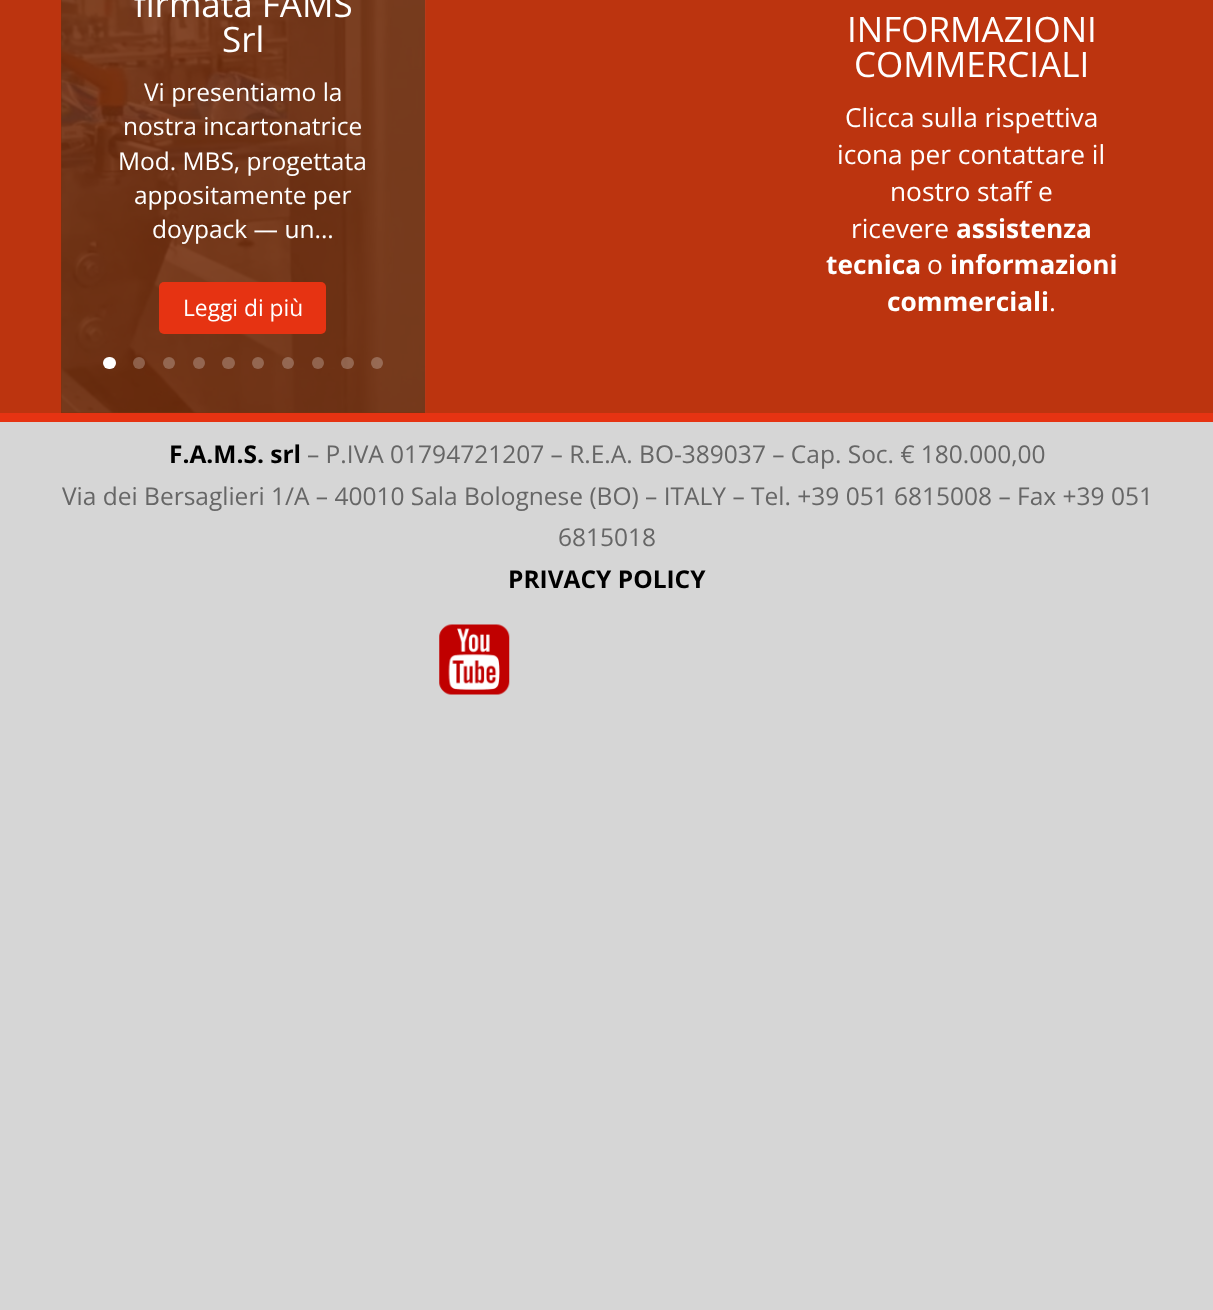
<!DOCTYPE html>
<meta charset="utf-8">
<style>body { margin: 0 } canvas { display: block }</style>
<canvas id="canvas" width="1213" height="1310"></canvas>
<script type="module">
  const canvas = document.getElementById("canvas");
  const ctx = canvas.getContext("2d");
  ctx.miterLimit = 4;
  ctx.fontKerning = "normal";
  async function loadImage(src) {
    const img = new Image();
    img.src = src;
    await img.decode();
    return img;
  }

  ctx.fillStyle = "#d6d6d6";
  ctx.fillRect(0, 0, 1213, 1310);
  ctx.fillStyle = "#bc340f";
  ctx.fillRect(0, 0, 1213, 413);
  ctx.fillStyle = "#e63312";
  ctx.fillRect(0, 413, 1213, 9);
  ctx.fillStyle = "#822e0b";
  ctx.fillRect(61, 0, 364, 413);
  ctx.drawImage(await loadImage("img1.png"), 61, 0, 365, 413);
  ctx.font = "35px Open Sans";
  ctx.fillStyle = "#ffffff";
  ctx.fillText("firmata FAMS", 134, 17);
  ctx.fillText("Srl", 222, 52);
  ctx.font = "24.5px Open Sans";
  ctx.fillText("Vi presentiamo la", 144, 101);
  ctx.fillText("nostra incartonatrice", 123, 135);
  ctx.fillText("Mod. MBS, progettata", 118, 170);
  ctx.fillText("appositamente per", 134, 204);
  ctx.fillText("doypack — un...", 152, 238);
  ctx.fillStyle = "#e63312";
  ctx.beginPath();
  ctx.roundRect(159, 282, 167, 52, 5);
  ctx.fill();
  ctx.font = "22.75px Open Sans";
  ctx.fillStyle = "#ffffff";
  ctx.fillText("Leggi di più", 183, 316);
  ctx.beginPath();
  ctx.roundRect(103, 357, 13, 12, 6);
  ctx.fill();
  ctx.fillStyle = "rgba(255, 255, 255, 0.25)";
  ctx.beginPath();
  ctx.arc(139, 363, 6, 0, Math.PI * 2);
  ctx.fill();
  ctx.fillStyle = "#946751";
  ctx.beginPath();
  ctx.arc(169, 363, 6, 0, Math.PI * 2);
  ctx.fill();
  ctx.fillStyle = "#936651";
  ctx.beginPath();
  ctx.arc(199, 363, 6, 0, Math.PI * 2);
  ctx.fill();
  ctx.fillStyle = "#936650";
  ctx.beginPath();
  ctx.roundRect(222, 357, 13, 12, 6);
  ctx.fill();
  ctx.fillStyle = "#946751";
  ctx.beginPath();
  ctx.arc(258, 363, 6, 0, Math.PI * 2);
  ctx.fill();
  ctx.fillStyle = "rgba(255, 255, 255, 0.25)";
  ctx.beginPath();
  ctx.arc(288, 363, 6, 0, Math.PI * 2);
  ctx.fill();
  ctx.fillStyle = "#91644e";
  ctx.beginPath();
  ctx.arc(318, 363, 6, 0, Math.PI * 2);
  ctx.fill();
  ctx.fillStyle = "rgba(255, 255, 255, 0.25)";
  ctx.beginPath();
  ctx.roundRect(341, 357, 13, 12, 6);
  ctx.fill();
  ctx.beginPath();
  ctx.arc(377, 363, 6, 0, Math.PI * 2);
  ctx.fill();
  ctx.font = "35px Open Sans";
  ctx.fillStyle = "#ffffff";
  ctx.fillText("INFORMAZIONI", 847, 42);
  ctx.fillText("COMMERCIALI", 854, 77);
  ctx.font = "26.25px Open Sans";
  ctx.fillText("Clicca sulla rispettiva", 845, 127);
  ctx.fillText("icona per contattare il", 837, 164);
  ctx.fillText("nostro staff e", 890, 201);
  ctx.fillText("ricevere", 851, 238);
  ctx.font = "bold 26.25px Open Sans";
  ctx.fillText("assistenza", 956, 238);
  ctx.fillText("tecnica", 826, 274);
  ctx.font = "26.25px Open Sans";
  ctx.fillText("o", 927, 274);
  ctx.font = "bold 26.25px Open Sans";
  ctx.fillText("informazioni", 950, 274);
  ctx.fillText("commerciali", 887, 311);
  ctx.font = "26.25px Open Sans";
  ctx.fillText(".", 1049, 311);
  ctx.font = "bold 24.5px Open Sans";
  ctx.fillStyle = "#000000";
  ctx.fillText("F.A.M.S. srl", 169, 463);
  ctx.font = "24.5px Open Sans";
  ctx.fillStyle = "#666666";
  ctx.fillText("– P.IVA 01794721207 – R.E.A. BO-389037 – Cap. Soc. € 180.000,00", 307, 463);
  ctx.fillText("Via dei Bersaglieri 1/A – 40010 Sala Bolognese (BO) – ITALY – Tel. +39 051 6815008 – Fax +39 051", 62, 505);
  ctx.fillText("6815018", 558, 546);
  ctx.font = "bold 24.5px Open Sans";
  ctx.fillStyle = "#000000";
  ctx.fillText("PRIVACY POLICY", 508, 588);
  ctx.drawImage(await loadImage("img2.png"), 439, 624, 71, 71);
</script>
